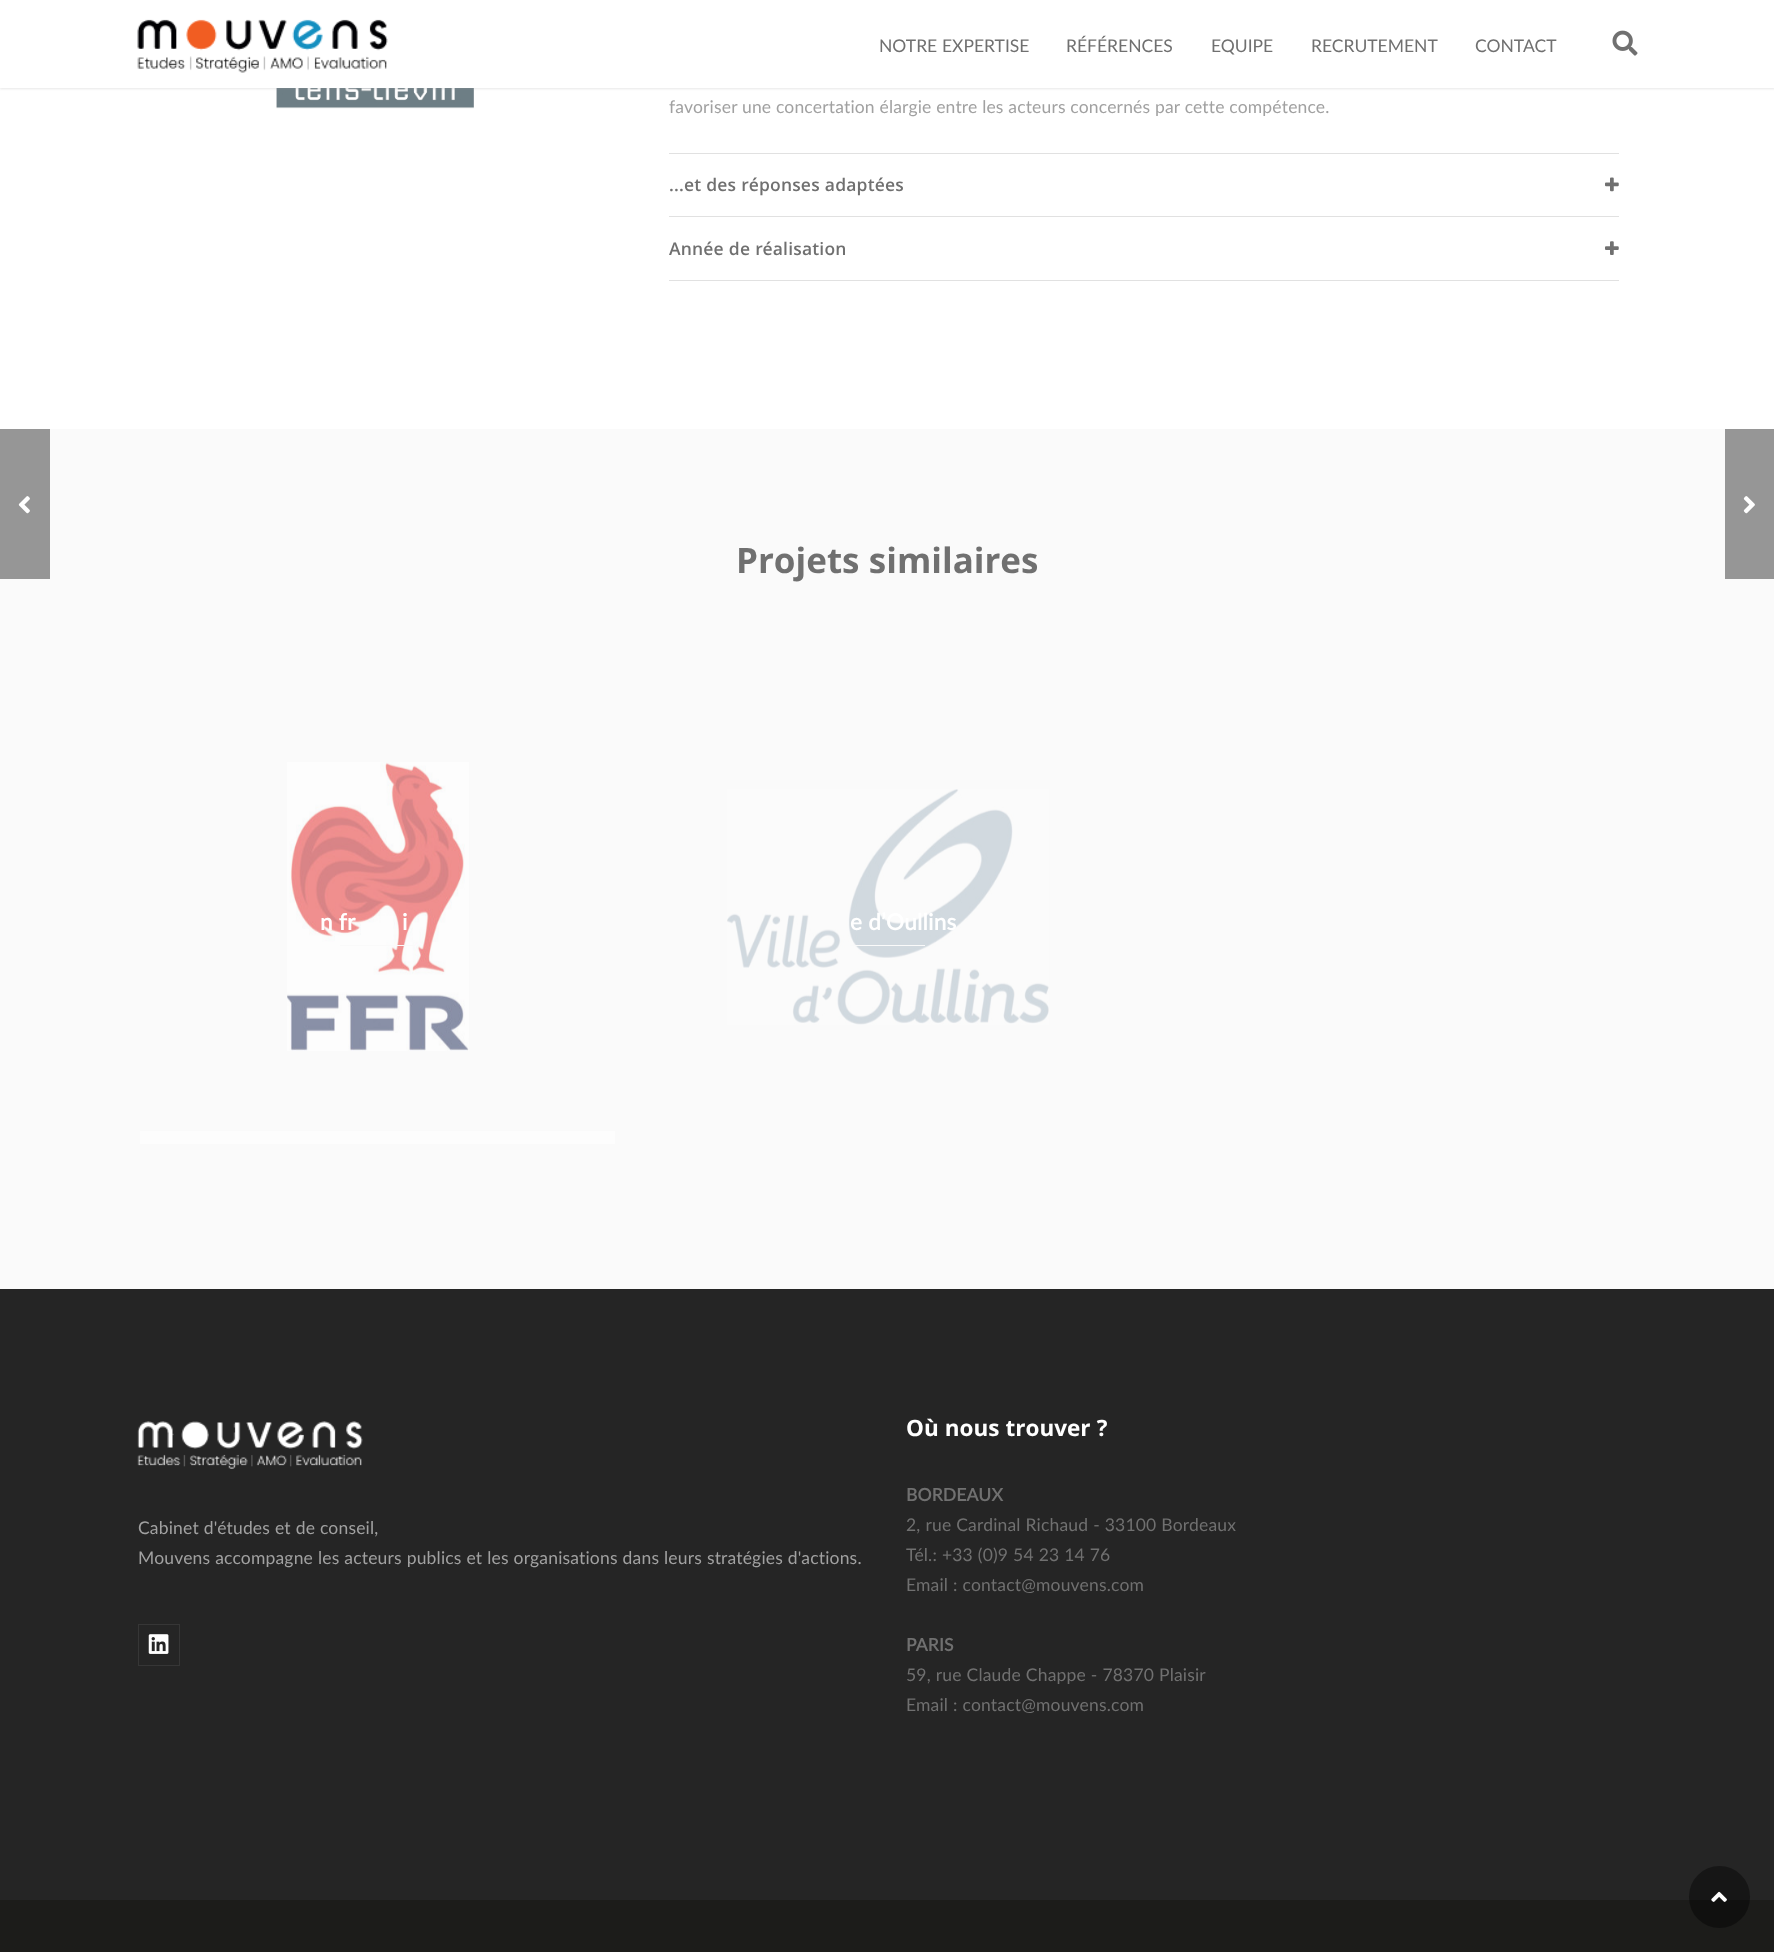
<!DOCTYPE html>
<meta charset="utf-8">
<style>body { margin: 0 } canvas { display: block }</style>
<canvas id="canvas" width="1774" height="1952"></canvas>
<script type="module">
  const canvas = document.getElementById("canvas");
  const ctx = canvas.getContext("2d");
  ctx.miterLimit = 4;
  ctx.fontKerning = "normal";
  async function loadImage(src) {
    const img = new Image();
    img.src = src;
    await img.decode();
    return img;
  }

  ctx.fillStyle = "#ffffff";
  ctx.fillRect(0, 0, 1774, 1952);
  ctx.drawImage(await loadImage("img3.png"), 205, 88, 340, 21);
  ctx.fillStyle = "rgba(161, 161, 161, 0.25)";
  ctx.filter = "blur(1px)";
  ctx.beginPath();
  ctx.rect(0, 1, 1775, 88);
  ctx.fill();
  ctx.filter = "none";
  ctx.fillStyle = "#ffffff";
  ctx.fillRect(0, 0, 1774, 88);
  ctx.drawImage(await loadImage("img1.png"), 137, 19, 251, 54);
  ctx.wordSpacing = "0.25px";
  ctx.font = "17.5px Lato";
  ctx.fillStyle = "#707070";
  ctx.fillText("NOTRE EXPERTISE", 879, 52);
  ctx.wordSpacing = "0px";
  ctx.fillText("RÉFÉRENCES", 1066, 52);
  ctx.fillText("EQUIPE", 1211, 52);
  ctx.fillText("RECRUTEMENT", 1311, 52);
  ctx.fillText("CONTACT", 1475, 52);
  ctx.drawImage(await loadImage("img2.png"), 1612, 30, 26, 26);
  ctx.fillStyle = "#e1e1e1";
  ctx.fillRect(669, 153, 950, 1);
  ctx.letterSpacing = "0.18px";
  ctx.fillStyle = "#a1a1a1";
  ctx.fillText("favoriser une concertation élargie entre les acteurs concernés par cette compétence.", 669, 113);
  ctx.fillStyle = "#e1e1e1";
  ctx.fillRect(669, 216, 950, 1);
  ctx.wordSpacing = "0.25px";
  ctx.font = "600 17.5px Open Sans";
  ctx.fillStyle = "#707070";
  ctx.fillText("...et des réponses adaptées", 669, 191);
  ctx.drawImage(await loadImage("img4.png"), 1605, 177, 14, 15);
  ctx.fillStyle = "#e1e1e1";
  ctx.fillRect(669, 280, 950, 1);
  ctx.fillStyle = "#707070";
  ctx.fillText("Année de réalisation", 669, 255);
  ctx.drawImage(await loadImage("img5.png"), 1605, 241, 14, 14);
  ctx.fillStyle = "#fafafa";
  ctx.fillRect(0, 429, 1774, 860);
  ctx.fillStyle = "#969696";
  ctx.fillRect(0, 429, 50, 150);
  ctx.drawImage(await loadImage("img6.png"), 18, 496, 12, 18);
  ctx.fillRect(1725, 429, 49, 150);
  ctx.drawImage(await loadImage("img7.png"), 1743, 496, 12, 18);
  ctx.letterSpacing = "0px";
  ctx.font = "bold 35px Open Sans";
  ctx.fillStyle = "#707070";
  ctx.fillText("Projets similaires", 736, 573);
  ctx.drawImage(await loadImage("img8.png"), 287, 762, 182, 289);
  ctx.letterSpacing = "0.25px";
  ctx.wordSpacing = "0px";
  ctx.font = "bold 22.5px Lato";
  ctx.fillStyle = "#ffffff";
  ctx.fillText("n fr", 320, 930);
  ctx.fillText("i", 402, 930);
  ctx.fillStyle = "#fafafa";
  ctx.fillRect(340, 945, 75, 1);
  ctx.fillStyle = "#fdfdfd";
  ctx.fillRect(140, 1131, 475, 13);
  ctx.drawImage(await loadImage("img9.png"), 727, 789, 322, 236);
  ctx.fillStyle = "#ffffff";
  ctx.fillText("e d’Oullins", 850, 930);
  ctx.fillStyle = "#fafafa";
  ctx.fillRect(850, 945, 75, 1);
  ctx.fillStyle = "#252525";
  ctx.fillRect(0, 1289, 1774, 611);
  ctx.drawImage(await loadImage("img10.png"), 137, 1421, 226, 48);
  ctx.letterSpacing = "0.18px";
  ctx.wordSpacing = "0.25px";
  ctx.font = "17.5px Lato";
  ctx.fillStyle = "#a1a1a1";
  ctx.fillText("Cabinet d'études et de conseil,", 138, 1534);
  ctx.fillText("Mouvens accompagne les acteurs publics et les organisations dans leurs stratégies d'actions.", 138, 1564);
  ctx.strokeStyle = "#363636";
  ctx.strokeRect(138.5, 1624.5, 41, 41);
  ctx.drawImage(await loadImage("img11.png"), 148, 1634, 21, 20);
  ctx.letterSpacing = "0px";
  ctx.font = "bold 22.5px Open Sans";
  ctx.fillStyle = "#ffffff";
  ctx.fillText("Où nous trouver ?", 906, 1436);
  ctx.letterSpacing = "0.18px";
  ctx.wordSpacing = "0px";
  ctx.font = "bold 17.5px Lato";
  ctx.fillStyle = "#707070";
  ctx.fillText("BORDEAUX", 906, 1501);
  ctx.wordSpacing = "0.25px";
  ctx.font = "17.5px Lato";
  ctx.fillText("2, rue Cardinal Richaud - 33100 Bordeaux", 906, 1531);
  ctx.fillText("Tél.: +33 (0)9 54 23 14 76", 906, 1561);
  ctx.fillText("Email : contact@mouvens.com", 906, 1591);
  ctx.wordSpacing = "0px";
  ctx.font = "bold 17.5px Lato";
  ctx.fillText("PARIS", 906, 1651);
  ctx.wordSpacing = "0.25px";
  ctx.font = "17.5px Lato";
  ctx.fillText("59, rue Claude Chappe - 78370 Plaisir", 906, 1681);
  ctx.fillText("Email : contact@mouvens.com", 906, 1711);
  ctx.fillStyle = "#1c1c1a";
  ctx.fillRect(0, 1900, 1774, 52);
  ctx.fillStyle = "rgba(0, 0, 0, 0.4)";
  ctx.beginPath();
  ctx.roundRect(1689, 1866, 61, 62, 30.5);
  ctx.fill();
  ctx.drawImage(await loadImage("img12.png"), 1711, 1891, 16, 11);
</script>
